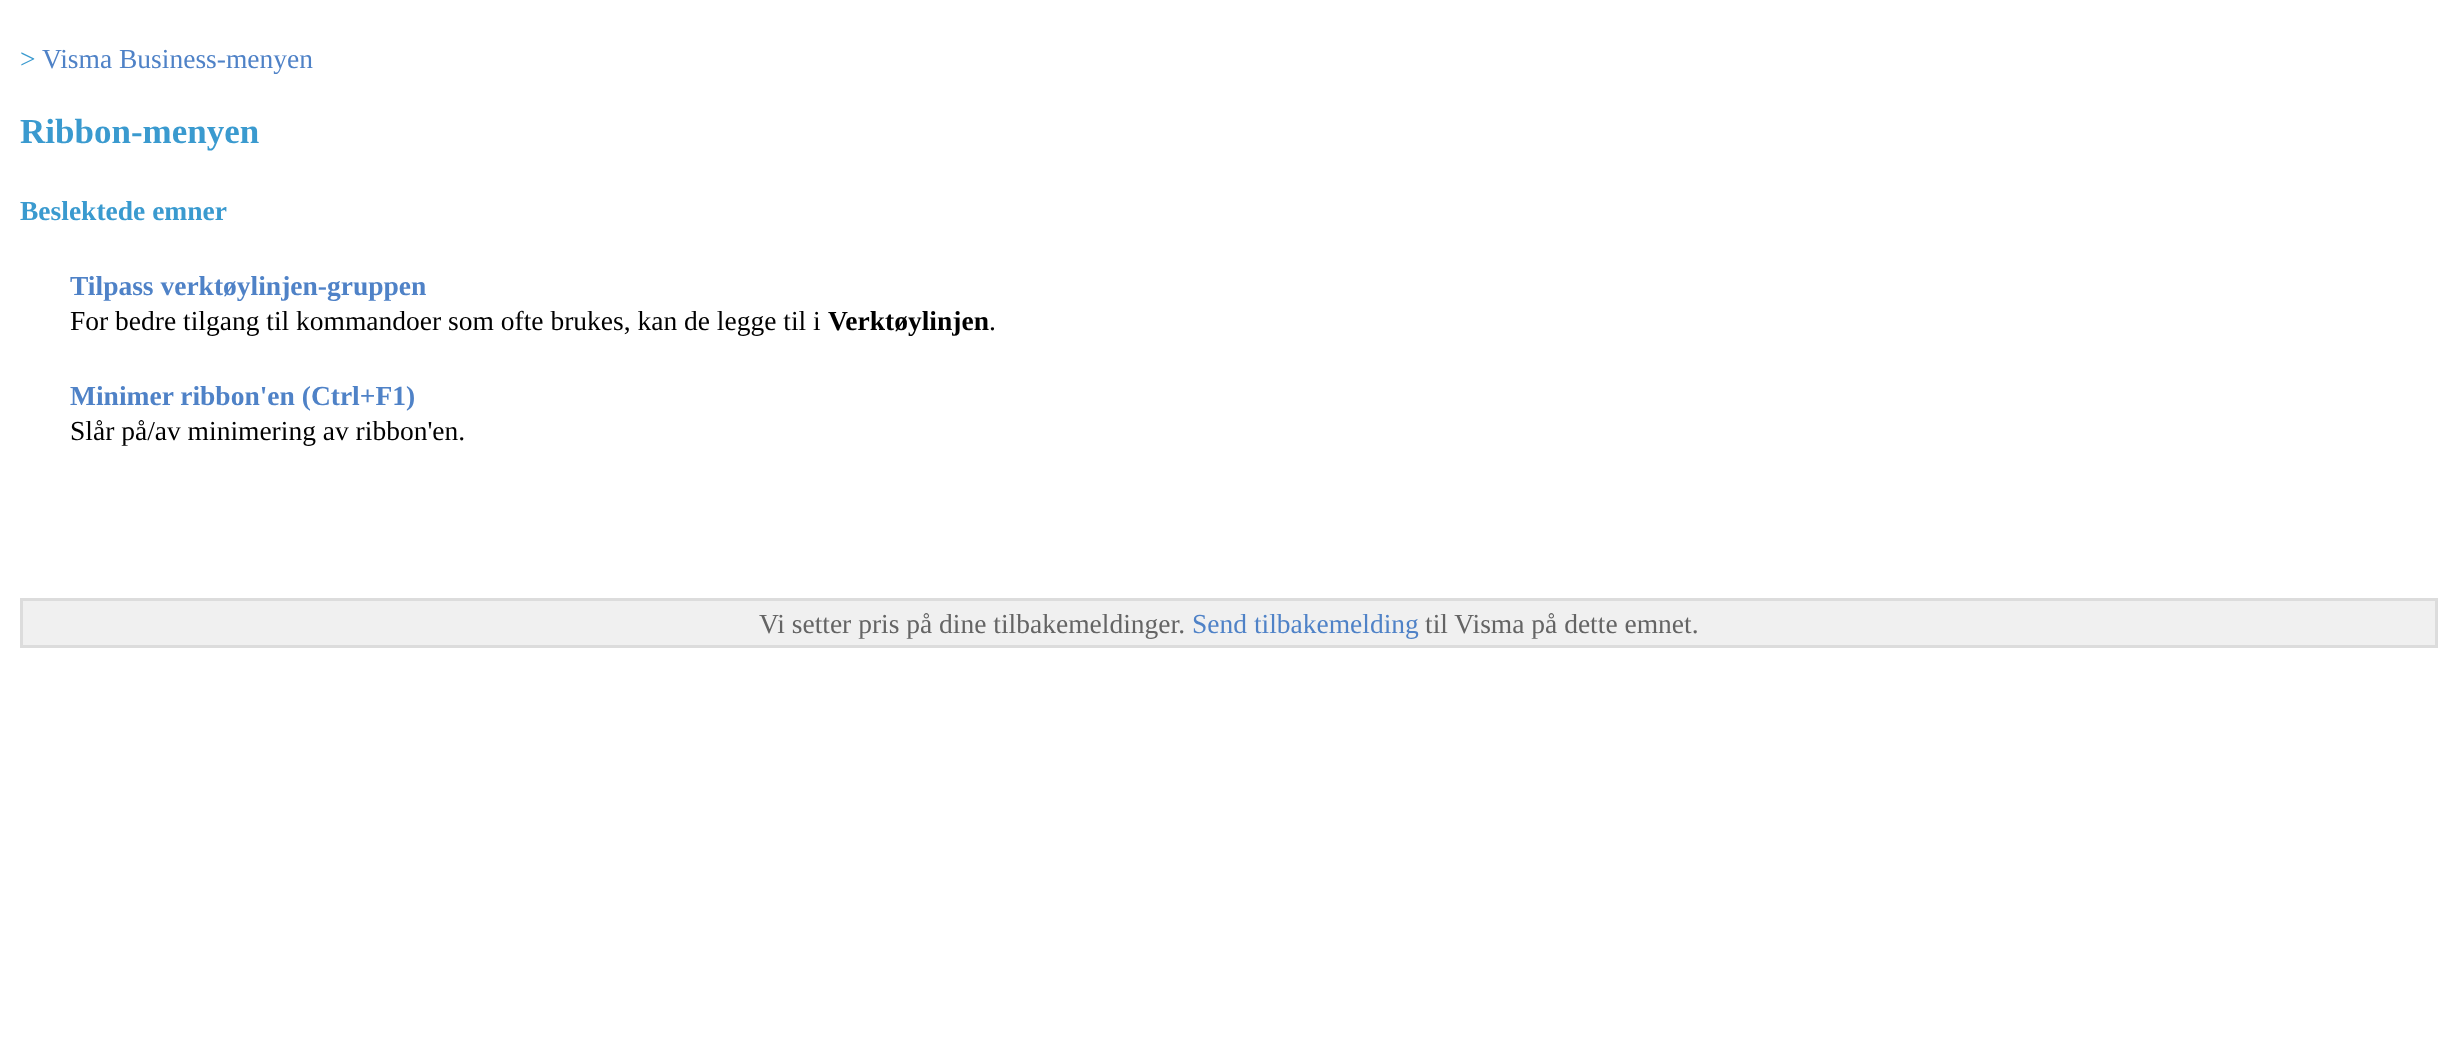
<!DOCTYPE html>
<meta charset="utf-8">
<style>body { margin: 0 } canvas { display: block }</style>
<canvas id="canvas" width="2456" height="1056"></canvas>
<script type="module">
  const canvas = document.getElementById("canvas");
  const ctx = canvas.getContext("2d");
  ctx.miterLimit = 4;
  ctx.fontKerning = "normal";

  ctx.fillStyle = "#ffffff";
  ctx.fillRect(0, 0, 2456, 1056);
  ctx.font = "27.5px Liberation Serif";
  ctx.fillStyle = "#3a9acf";
  ctx.fillText(">", 20, 68);
  ctx.fillStyle = "#4f82c7";
  ctx.fillText("Visma Business-menyen", 42, 68);
  ctx.font = "bold 35px Liberation Serif";
  ctx.fillStyle = "#3a9acf";
  ctx.fillText("Ribbon-menyen", 20, 143);
  ctx.font = "bold 27.5px Liberation Serif";
  ctx.fillText("Beslektede emner", 20, 220);
  ctx.fillStyle = "#4f82c7";
  ctx.fillText("Tilpass verktøylinjen-gruppen", 70, 295);
  ctx.font = "27.5px Liberation Serif";
  ctx.fillStyle = "#000000";
  ctx.fillText("For bedre tilgang til kommandoer som ofte brukes, kan de legge til i", 70, 330);
  ctx.font = "bold 27.5px Liberation Serif";
  ctx.fillText("Verktøylinjen", 828, 330);
  ctx.font = "27.5px Liberation Serif";
  ctx.fillText(".", 989, 330);
  ctx.font = "bold 27.5px Liberation Serif";
  ctx.fillStyle = "#4f82c7";
  ctx.fillText("Minimer ribbon'en (Ctrl+F1)", 70, 405);
  ctx.font = "27.5px Liberation Serif";
  ctx.fillStyle = "#000000";
  ctx.fillText("Slår på/av minimering av ribbon'en.", 70, 440);
  ctx.fillStyle = "#f0f0f0";
  ctx.beginPath();
  ctx.rect(21.5, 599.5, 2415, 47);
  ctx.fill();
  ctx.strokeStyle = "#dcdcdc";
  ctx.lineWidth = 3;
  ctx.stroke();
  ctx.fillStyle = "#646464";
  ctx.fillText("Vi setter pris på dine tilbakemeldinger.", 759, 633);
  ctx.fillStyle = "#4f82c7";
  ctx.fillText("Send tilbakemelding", 1192, 633);
  ctx.fillStyle = "#646464";
  ctx.fillText("til Visma på dette emnet.", 1425, 633);
</script>
